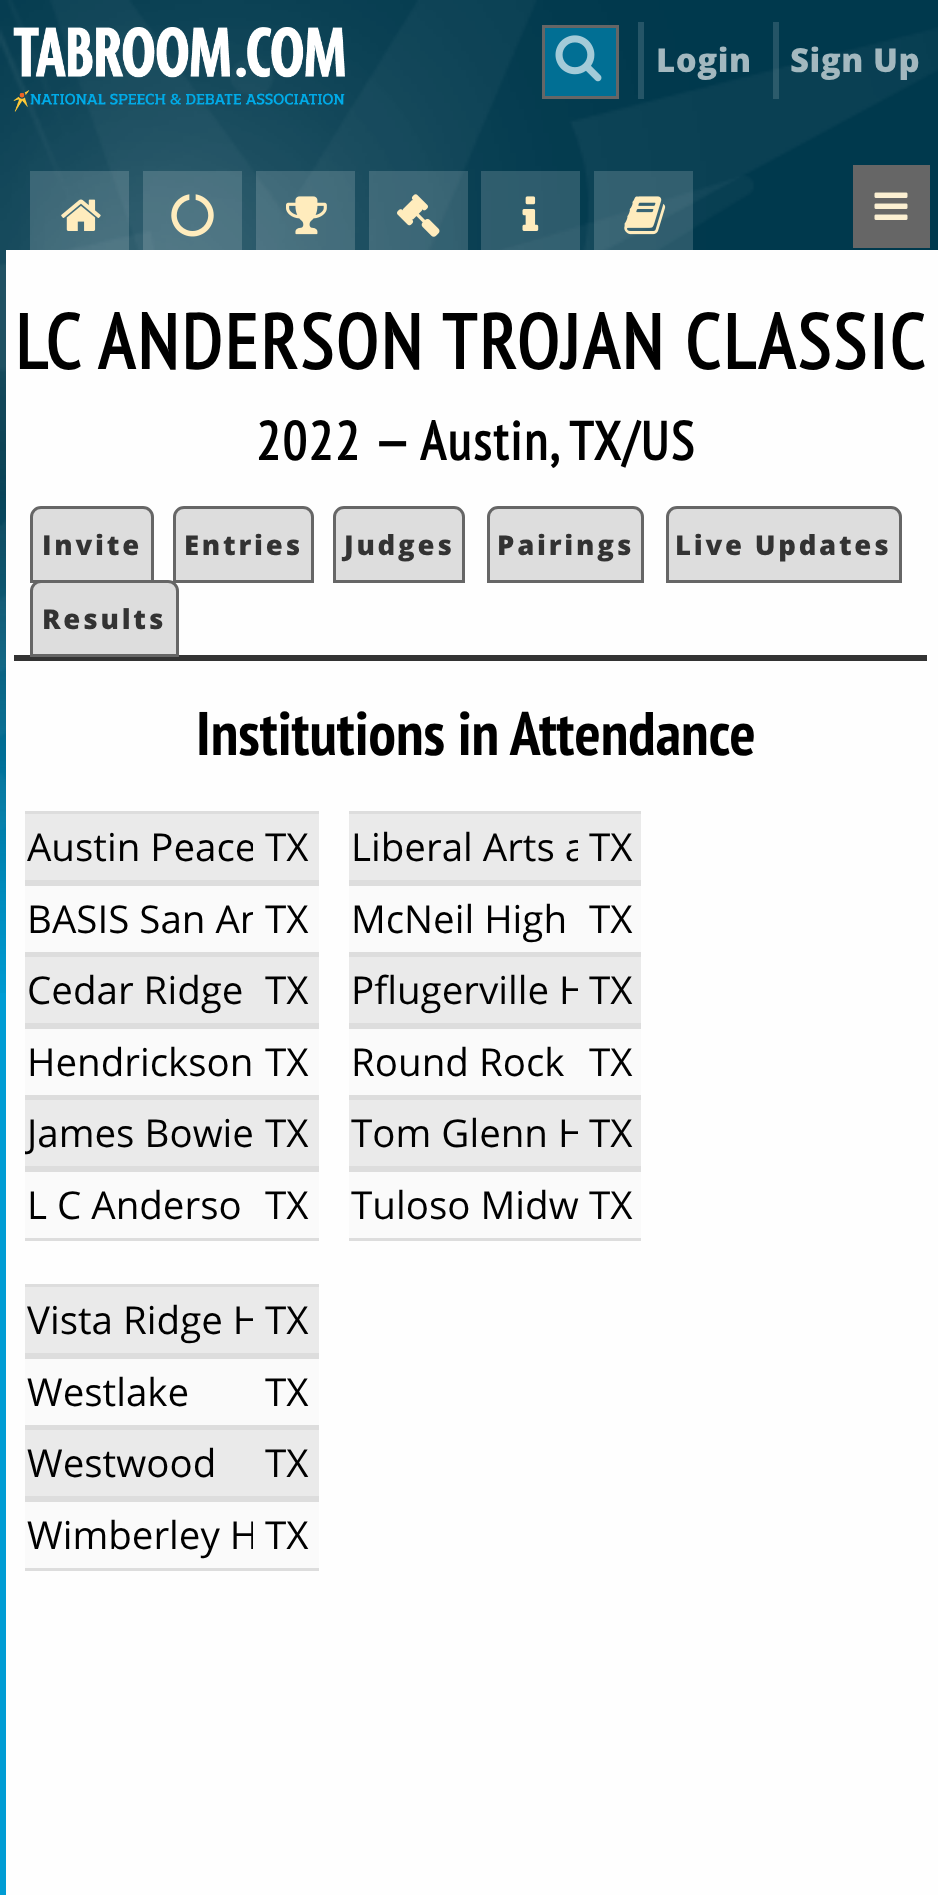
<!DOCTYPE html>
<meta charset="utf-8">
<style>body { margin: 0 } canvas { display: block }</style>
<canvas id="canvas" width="938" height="1895"></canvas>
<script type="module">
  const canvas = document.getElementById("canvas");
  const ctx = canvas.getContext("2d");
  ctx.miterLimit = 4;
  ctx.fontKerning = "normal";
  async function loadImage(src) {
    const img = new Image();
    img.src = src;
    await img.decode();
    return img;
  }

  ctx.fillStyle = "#009cd4";
  ctx.fillRect(0, 0, 938, 1895);
  ctx.drawImage(await loadImage("img1.png"), 0, 0, 938, 993);
  ctx.drawImage(await loadImage("img2.png"), 0, 0, 938, 830);
  ctx.drawImage(await loadImage("img3.png"), 13, 27, 332, 85);
  ctx.fillStyle = "#016f94";
  ctx.beginPath();
  ctx.rect(543.5, 26.5, 74, 71);
  ctx.fill();
  ctx.strokeStyle = "#666666";
  ctx.lineWidth = 3;
  ctx.stroke();
  ctx.drawImage(await loadImage("img4.png"), 555, 35, 47, 47);
  ctx.fillStyle = "#255567";
  ctx.fillRect(638, 22, 6, 77);
  ctx.letterSpacing = "0.5px";
  ctx.font = "800 33px Open Sans";
  ctx.fillStyle = "#a3b8bf";
  ctx.fillText("Login", 656, 72);
  ctx.fillStyle = "rgba(255, 255, 255, 0.14)";
  ctx.fillRect(773, 22, 6, 77);
  ctx.fillStyle = "#a3b8bf";
  ctx.fillText("Sign Up", 790, 72);
  ctx.fillStyle = "rgba(255, 255, 255, 0.16)";
  ctx.fillRect(30, 171, 99, 79);
  ctx.drawImage(await loadImage("img5.png"), 61, 199, 40, 32);
  ctx.fillRect(143, 171, 99, 79);
  ctx.drawImage(await loadImage("img6.png"), 171, 194, 43, 43);
  ctx.fillRect(256, 171, 99, 79);
  ctx.drawImage(await loadImage("img7.png"), 286, 196, 41, 39);
  ctx.fillRect(369, 171, 99, 79);
  ctx.drawImage(await loadImage("img8.png"), 397, 194, 43, 43);
  ctx.fillRect(481, 171, 99, 79);
  ctx.drawImage(await loadImage("img9.png"), 522, 196, 17, 35);
  ctx.fillRect(594, 171, 99, 79);
  ctx.drawImage(await loadImage("img10.png"), 624, 196, 42, 39);
  ctx.fillStyle = "#666666";
  ctx.fillRect(853, 165, 77, 83);
  ctx.drawImage(await loadImage("img11.png"), 874, 192, 34, 28);
  ctx.fillStyle = "#fefefe";
  ctx.fillRect(6, 250, 932, 1645);
  ctx.letterSpacing = "2.75px";
  ctx.font = "bold 77px PT Sans Narrow";
  ctx.fillStyle = "#000000";
  ctx.fillText("LC ANDERSON TROJAN CLASSIC", 15, 369);
  ctx.letterSpacing = "2px";
  ctx.font = "bold 54px PT Sans Narrow";
  ctx.fillText("2022", 256, 460);
  ctx.fillText("—", 374, 460);
  ctx.fillText("Austin,", 420, 460);
  ctx.fillText("TX/US", 569, 460);
  ctx.fillStyle = "#333333";
  ctx.fillRect(14, 655, 913, 6);
  ctx.fillStyle = "#dddddd";
  ctx.beginPath();
  ctx.roundRect(31.5, 507.5, 121, 74, [9.5, 9.5, 0, 0]);
  ctx.fill();
  ctx.stroke();
  ctx.letterSpacing = "2.75px";
  ctx.font = "800 27.5px Open Sans";
  ctx.fillStyle = "#333333";
  ctx.fillText("Invite", 42, 555);
  ctx.fillStyle = "#dddddd";
  ctx.beginPath();
  ctx.roundRect(174.5, 507.5, 138, 74, [9.5, 9.5, 0, 0]);
  ctx.fill();
  ctx.stroke();
  ctx.fillStyle = "#333333";
  ctx.fillText("Entries", 184, 555);
  ctx.fillStyle = "#dddddd";
  ctx.beginPath();
  ctx.roundRect(334.5, 507.5, 129, 74, [9.5, 9.5, 0, 0]);
  ctx.fill();
  ctx.stroke();
  ctx.fillStyle = "#333333";
  ctx.fillText("Judges", 344, 555);
  ctx.fillStyle = "#dddddd";
  ctx.beginPath();
  ctx.roundRect(488.5, 507.5, 154, 74, [9.5, 9.5, 0, 0]);
  ctx.fill();
  ctx.stroke();
  ctx.fillStyle = "#333333";
  ctx.fillText("Pairings", 497, 555);
  ctx.fillStyle = "#dddddd";
  ctx.beginPath();
  ctx.roundRect(667.5, 507.5, 233, 74, [9.5, 9.5, 0, 0]);
  ctx.fill();
  ctx.stroke();
  ctx.fillStyle = "#333333";
  ctx.fillText("Live Updates", 675, 555);
  ctx.fillStyle = "#dddddd";
  ctx.beginPath();
  ctx.roundRect(31.5, 581.5, 146, 74, [9.5, 9.5, 0, 0]);
  ctx.fill();
  ctx.stroke();
  ctx.fillStyle = "#333333";
  ctx.fillText("Results", 42, 629);
  ctx.letterSpacing = "0px";
  ctx.font = "bold 61.5px 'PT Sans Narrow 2'";
  ctx.fillStyle = "#000000";
  ctx.fillText("Institutions in Attendance", 196, 755);
  ctx.fillStyle = "#eaeaea";
  ctx.fillRect(25, 814, 294, 66);
  ctx.fillStyle = "#dddddd";
  ctx.fillRect(25, 811, 294, 3);
  ctx.fillRect(25, 880, 294, 6);
  ctx.save();
  ctx.beginPath();
  ctx.rect(25, 820, 228, 55);
  ctx.clip();
  ctx.font = "38.5px Open Sans";
  ctx.fillStyle = "#000000";
  ctx.fillText("Austin Peace", 27, 861);
  ctx.restore();
  ctx.font = "38.5px Open Sans";
  ctx.fillStyle = "#000000";
  ctx.fillText("TX", 265, 861);
  ctx.fillStyle = "#fafafa";
  ctx.fillRect(25, 886, 294, 66);
  ctx.fillStyle = "#dddddd";
  ctx.fillRect(25, 952, 294, 5);
  ctx.save();
  ctx.beginPath();
  ctx.rect(25, 891, 228, 55);
  ctx.clip();
  ctx.fillStyle = "#000000";
  ctx.fillText("BASIS San An", 27, 933);
  ctx.restore();
  ctx.fillStyle = "#000000";
  ctx.fillText("TX", 265, 933);
  ctx.fillStyle = "#eaeaea";
  ctx.fillRect(25, 957, 294, 66);
  ctx.fillStyle = "#dddddd";
  ctx.fillRect(25, 1023, 294, 6);
  ctx.fillStyle = "#000000";
  ctx.fillText("Cedar Ridge", 27, 1004);
  ctx.fillText("TX", 265, 1004);
  ctx.fillStyle = "#fafafa";
  ctx.fillRect(25, 1029, 294, 66);
  ctx.fillStyle = "#dddddd";
  ctx.fillRect(25, 1095, 294, 5);
  ctx.fillStyle = "#000000";
  ctx.fillText("Hendrickson", 27, 1076);
  ctx.fillText("TX", 265, 1076);
  ctx.fillStyle = "#eaeaea";
  ctx.fillRect(25, 1100, 294, 66);
  ctx.fillStyle = "#dddddd";
  ctx.fillRect(25, 1166, 294, 6);
  ctx.save();
  ctx.beginPath();
  ctx.rect(25, 1106, 228, 55);
  ctx.clip();
  ctx.fillStyle = "#000000";
  ctx.fillText("James Bowie", 27, 1147);
  ctx.restore();
  ctx.fillStyle = "#000000";
  ctx.fillText("TX", 265, 1147);
  ctx.fillStyle = "#fafafa";
  ctx.fillRect(25, 1172, 294, 66);
  ctx.fillStyle = "#dddddd";
  ctx.fillRect(25, 1238, 294, 3);
  ctx.fillStyle = "#000000";
  ctx.fillText("L C Anderso", 27, 1219);
  ctx.fillText("TX", 265, 1219);
  ctx.fillStyle = "#eaeaea";
  ctx.fillRect(349, 814, 292, 66);
  ctx.fillStyle = "#dddddd";
  ctx.fillRect(349, 811, 292, 3);
  ctx.fillRect(349, 880, 292, 6);
  ctx.save();
  ctx.beginPath();
  ctx.rect(349, 820, 229, 55);
  ctx.clip();
  ctx.fillStyle = "#000000";
  ctx.fillText("Liberal Arts a", 351, 861);
  ctx.restore();
  ctx.fillStyle = "#000000";
  ctx.fillText("TX", 589, 861);
  ctx.fillStyle = "#fafafa";
  ctx.fillRect(349, 886, 292, 66);
  ctx.fillStyle = "#dddddd";
  ctx.fillRect(349, 952, 292, 5);
  ctx.fillStyle = "#000000";
  ctx.fillText("McNeil High", 351, 933);
  ctx.fillText("TX", 589, 933);
  ctx.fillStyle = "#eaeaea";
  ctx.fillRect(349, 957, 292, 66);
  ctx.fillStyle = "#dddddd";
  ctx.fillRect(349, 1023, 292, 6);
  ctx.save();
  ctx.beginPath();
  ctx.rect(349, 963, 229, 55);
  ctx.clip();
  ctx.fillStyle = "#000000";
  ctx.fillText("Pflugerville H", 351, 1004);
  ctx.restore();
  ctx.fillStyle = "#000000";
  ctx.fillText("TX", 589, 1004);
  ctx.fillStyle = "#fafafa";
  ctx.fillRect(349, 1029, 292, 66);
  ctx.fillStyle = "#dddddd";
  ctx.fillRect(349, 1095, 292, 5);
  ctx.fillStyle = "#000000";
  ctx.fillText("Round Rock", 351, 1076);
  ctx.fillText("TX", 589, 1076);
  ctx.fillStyle = "#eaeaea";
  ctx.fillRect(349, 1100, 292, 66);
  ctx.fillStyle = "#dddddd";
  ctx.fillRect(349, 1166, 292, 6);
  ctx.save();
  ctx.beginPath();
  ctx.rect(349, 1106, 229, 55);
  ctx.clip();
  ctx.fillStyle = "#000000";
  ctx.fillText("Tom Glenn H", 351, 1147);
  ctx.restore();
  ctx.fillStyle = "#000000";
  ctx.fillText("TX", 589, 1147);
  ctx.fillStyle = "#fafafa";
  ctx.fillRect(349, 1172, 292, 66);
  ctx.fillStyle = "#dddddd";
  ctx.fillRect(349, 1238, 292, 3);
  ctx.fillStyle = "#000000";
  ctx.fillText("Tuloso Midw", 351, 1219);
  ctx.fillText("TX", 589, 1219);
  ctx.fillStyle = "#eaeaea";
  ctx.fillRect(25, 1287, 294, 66);
  ctx.fillStyle = "#dddddd";
  ctx.fillRect(25, 1284, 294, 3);
  ctx.fillRect(25, 1353, 294, 6);
  ctx.save();
  ctx.beginPath();
  ctx.rect(25, 1293, 228, 55);
  ctx.clip();
  ctx.fillStyle = "#000000";
  ctx.fillText("Vista Ridge H", 27, 1334);
  ctx.restore();
  ctx.fillStyle = "#000000";
  ctx.fillText("TX", 265, 1334);
  ctx.fillStyle = "#fafafa";
  ctx.fillRect(25, 1359, 294, 66);
  ctx.fillStyle = "#dddddd";
  ctx.fillRect(25, 1425, 294, 5);
  ctx.fillStyle = "#000000";
  ctx.fillText("Westlake", 27, 1406);
  ctx.fillText("TX", 265, 1406);
  ctx.fillStyle = "#eaeaea";
  ctx.fillRect(25, 1430, 294, 66);
  ctx.fillStyle = "#dddddd";
  ctx.fillRect(25, 1496, 294, 6);
  ctx.fillStyle = "#000000";
  ctx.fillText("Westwood", 27, 1477);
  ctx.fillText("TX", 265, 1477);
  ctx.fillStyle = "#fafafa";
  ctx.fillRect(25, 1502, 294, 66);
  ctx.fillStyle = "#dddddd";
  ctx.fillRect(25, 1568, 294, 3);
  ctx.save();
  ctx.beginPath();
  ctx.rect(25, 1507, 228, 55);
  ctx.clip();
  ctx.fillStyle = "#000000";
  ctx.fillText("Wimberley H", 27, 1549);
  ctx.restore();
  ctx.fillStyle = "#000000";
  ctx.fillText("TX", 265, 1549);
</script>
